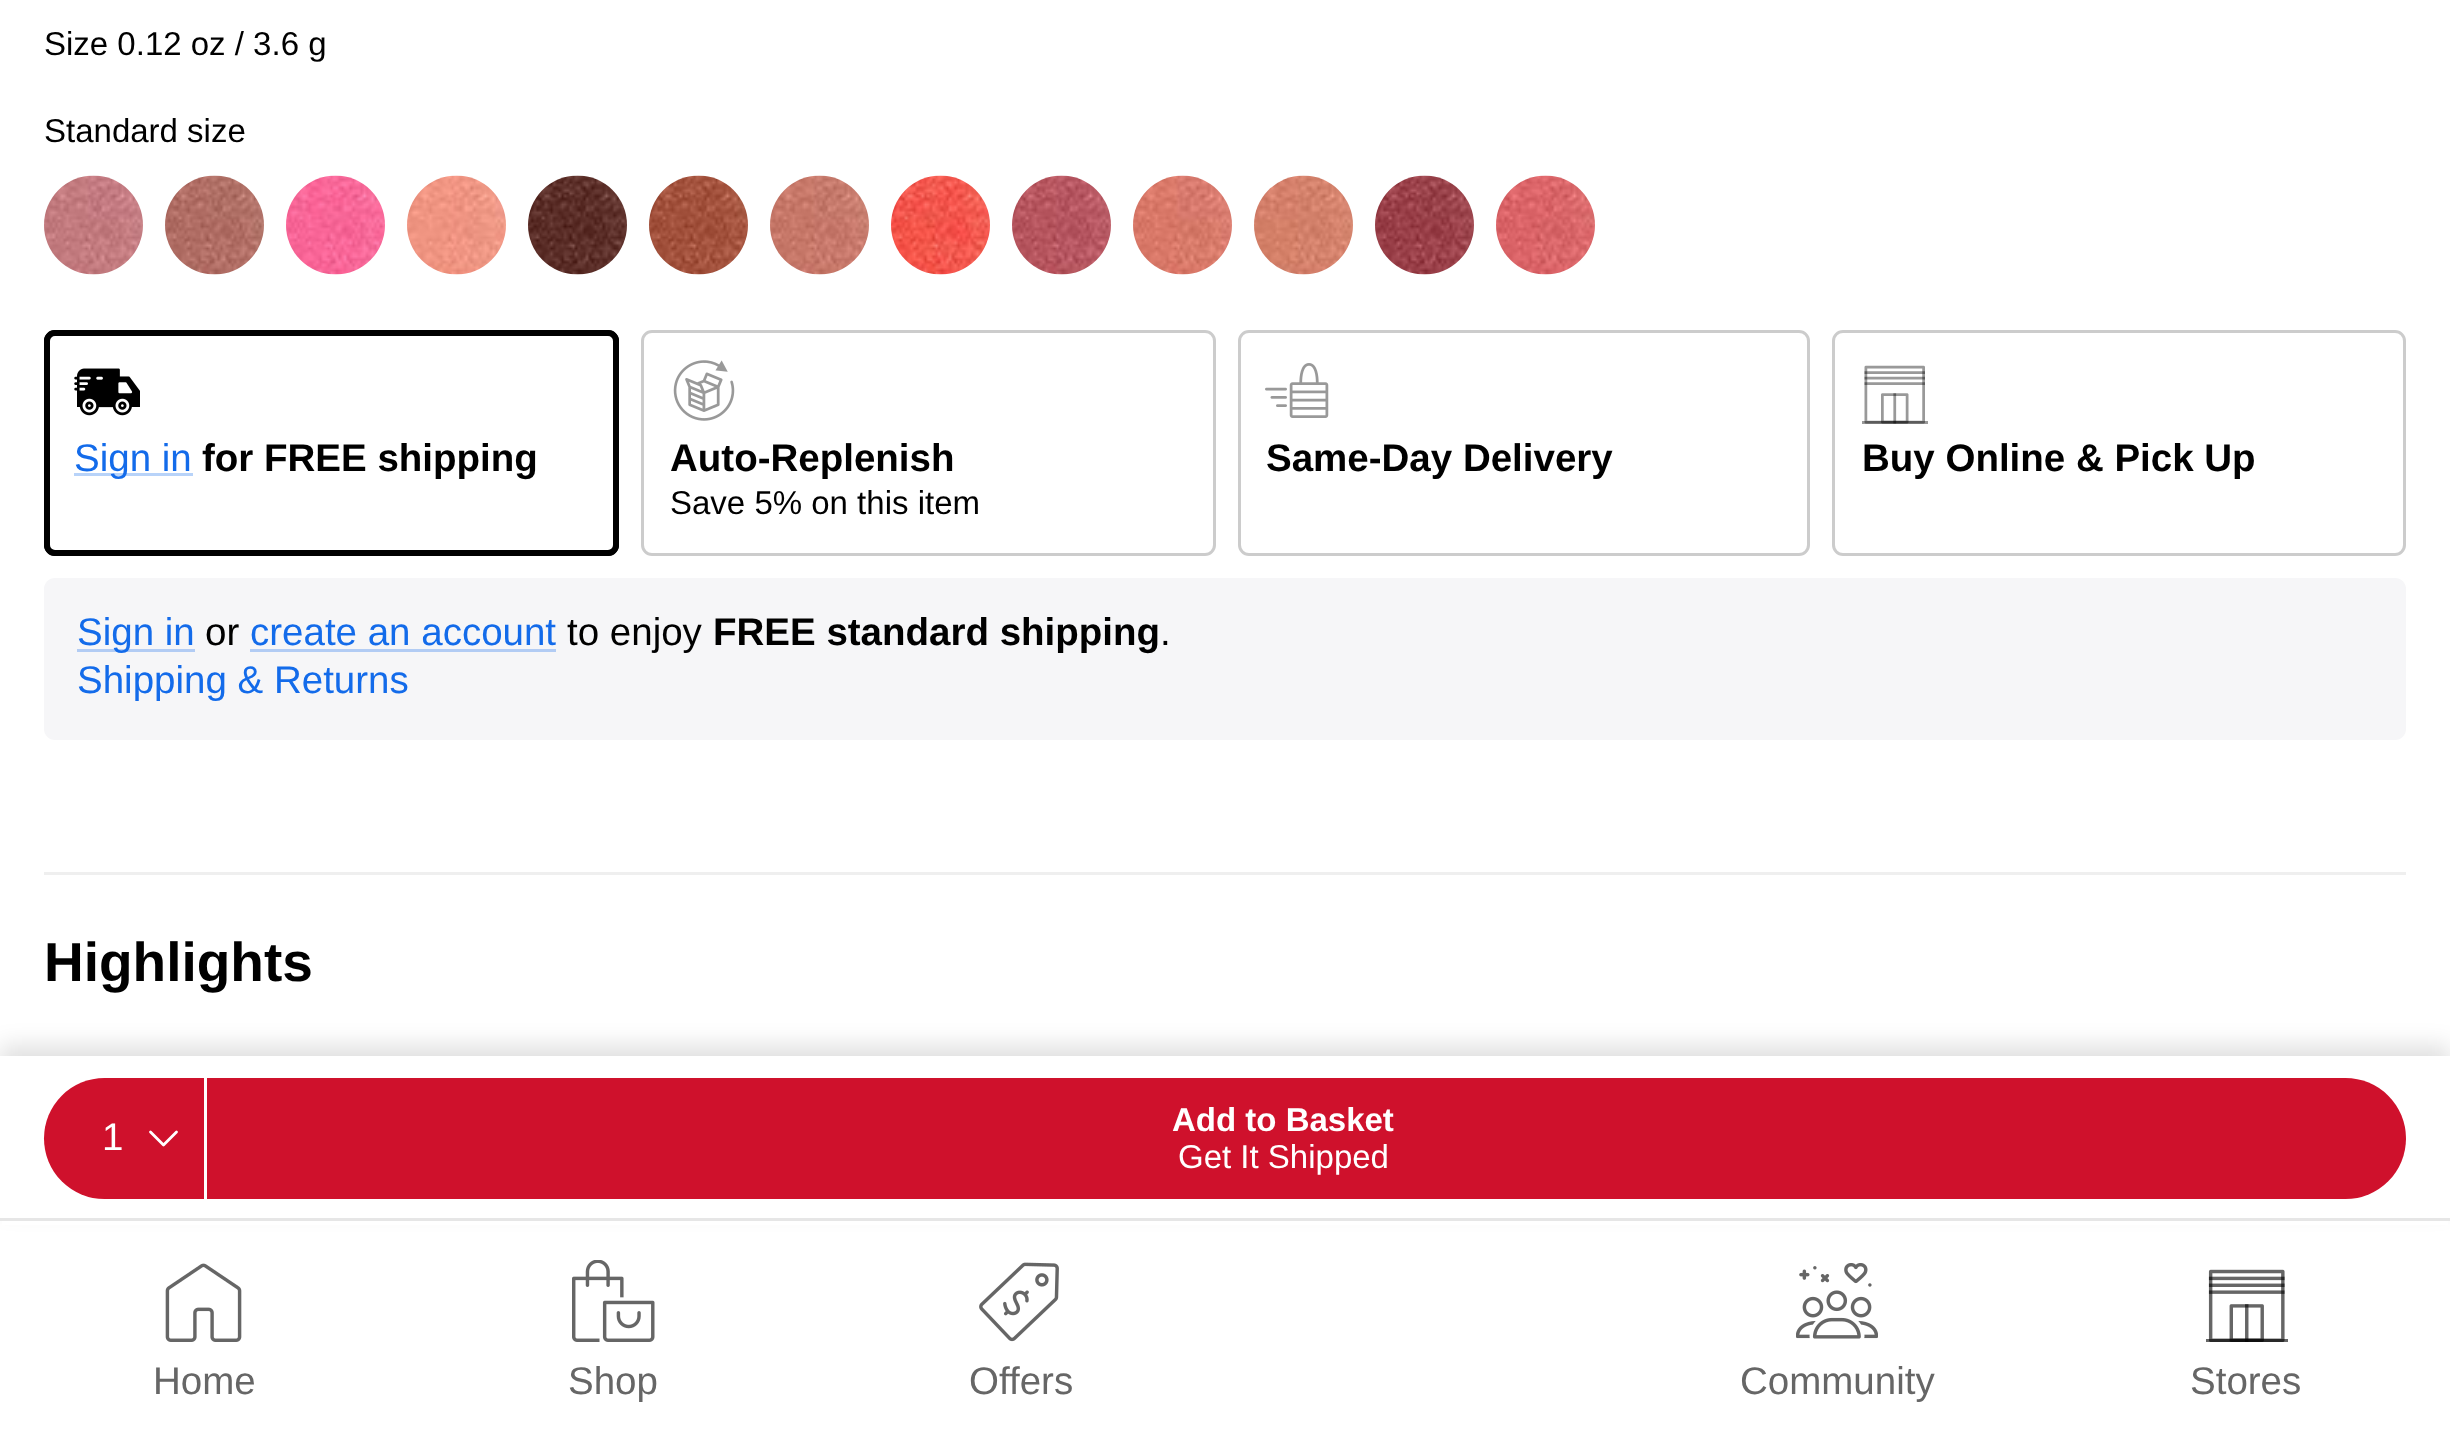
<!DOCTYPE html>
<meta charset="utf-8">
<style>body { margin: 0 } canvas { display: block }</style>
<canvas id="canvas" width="2450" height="1455"></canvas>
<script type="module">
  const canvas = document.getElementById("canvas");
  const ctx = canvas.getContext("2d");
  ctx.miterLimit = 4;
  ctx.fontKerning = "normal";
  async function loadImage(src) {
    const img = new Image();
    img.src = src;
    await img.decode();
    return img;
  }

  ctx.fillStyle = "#ffffff";
  ctx.fillRect(0, 0, 2450, 1455);
  ctx.font = "33px Liberation Sans";
  ctx.fillStyle = "#000000";
  ctx.fillText("Size 0.12 oz / 3.6 g", 44, 55);
  ctx.fillText("Standard size", 44, 142);
  ctx.drawImage(await loadImage("img1.png"), 44, 175, 99, 100);
  ctx.drawImage(await loadImage("img2.png"), 165, 175, 99, 100);
  ctx.drawImage(await loadImage("img3.png"), 286, 175, 99, 100);
  ctx.drawImage(await loadImage("img4.png"), 407, 175, 99, 100);
  ctx.drawImage(await loadImage("img5.png"), 528, 175, 99, 100);
  ctx.drawImage(await loadImage("img6.png"), 649, 175, 99, 100);
  ctx.drawImage(await loadImage("img7.png"), 770, 175, 99, 100);
  ctx.drawImage(await loadImage("img8.png"), 891, 175, 99, 100);
  ctx.drawImage(await loadImage("img9.png"), 1012, 175, 99, 100);
  ctx.drawImage(await loadImage("img10.png"), 1133, 175, 99, 100);
  ctx.drawImage(await loadImage("img11.png"), 1254, 175, 99, 100);
  ctx.drawImage(await loadImage("img12.png"), 1375, 175, 99, 100);
  ctx.drawImage(await loadImage("img13.png"), 1496, 175, 99, 100);
  ctx.beginPath();
  ctx.roundRect(45.5, 331.5, 572, 223, 9.5);
  ctx.strokeStyle = "#000000";
  ctx.lineWidth = 3;
  ctx.stroke();
  ctx.drawImage(await loadImage("img14.png"), 74, 368, 66, 48);
  ctx.fillStyle = "#b8d3f9";
  ctx.fillRect(74, 473, 119, 3);
  ctx.beginPath();
  ctx.roundRect(47, 333, 569, 220, 8);
  ctx.lineWidth = 6;
  ctx.stroke();
  ctx.font = "38.5px Liberation Sans";
  ctx.fillStyle = "#136bea";
  ctx.fillText("Sign in", 74, 471);
  ctx.font = "bold 38.5px Liberation Sans";
  ctx.fillStyle = "#000000";
  ctx.fillText("for FREE shipping", 202, 471);
  ctx.fillStyle = "#f6f6f8";
  ctx.beginPath();
  ctx.roundRect(44, 578, 2362, 162, 11);
  ctx.fill();
  ctx.fillStyle = "#b2ccf4";
  ctx.fillRect(77, 649, 118, 3);
  ctx.font = "38.5px Liberation Sans";
  ctx.fillStyle = "#136bea";
  ctx.fillText("Sign in", 77, 645);
  ctx.fillStyle = "#000000";
  ctx.fillText("or", 205, 645);
  ctx.fillStyle = "#136bea";
  ctx.fillText("create an account", 250, 645);
  ctx.fillStyle = "#b2ccf4";
  ctx.fillRect(250, 649, 306, 3);
  ctx.fillStyle = "#000000";
  ctx.fillText("to enjoy", 567, 645);
  ctx.font = "bold 38.5px Liberation Sans";
  ctx.fillText("FREE standard shipping", 713, 645);
  ctx.font = "38.5px Liberation Sans";
  ctx.fillText(".", 1160, 645);
  ctx.fillStyle = "#136bea";
  ctx.fillText("Shipping & Returns", 77, 693);
  ctx.beginPath();
  ctx.roundRect(642.5, 331.5, 572, 223, 9.5);
  ctx.strokeStyle = "#cccccc";
  ctx.lineWidth = 3;
  ctx.stroke();
  ctx.drawImage(await loadImage("img15.png"), 673, 360, 62, 61);
  ctx.font = "bold 38.5px Liberation Sans";
  ctx.fillStyle = "#000000";
  ctx.fillText("Auto-Replenish", 670, 471);
  ctx.font = "33px Liberation Sans";
  ctx.fillText("Save 5% on this item", 670, 514);
  ctx.beginPath();
  ctx.roundRect(1239.5, 331.5, 569, 223, 9.5);
  ctx.stroke();
  ctx.drawImage(await loadImage("img16.png"), 1265, 363, 64, 55);
  ctx.font = "bold 38.5px Liberation Sans";
  ctx.fillText("Same-Day Delivery", 1266, 471);
  ctx.beginPath();
  ctx.roundRect(1833.5, 331.5, 571, 223, 9.5);
  ctx.stroke();
  ctx.drawImage(await loadImage("img17.png"), 1862, 365, 66, 59);
  ctx.fillText("Buy Online & Pick Up", 1862, 471);
  ctx.fillStyle = "rgba(0, 0, 0, 0.12)";
  ctx.filter = "blur(11px)";
  ctx.beginPath();
  ctx.rect(0, 1045, 2450, 165);
  ctx.fill();
  ctx.filter = "none";
  ctx.fillStyle = "#ffffff";
  ctx.fillRect(0, 1056, 2450, 162);
  ctx.fillStyle = "#cf112c";
  ctx.beginPath();
  ctx.roundRect(44, 1078, 2362, 121, 60.5);
  ctx.fill();
  ctx.fillStyle = "#ffffff";
  ctx.fillRect(204, 1078, 3, 121);
  ctx.font = "38.5px Liberation Sans";
  ctx.fillText("1", 102, 1150);
  ctx.beginPath();
  ctx.moveTo(150.5, 1132);
  ctx.lineTo(163.5, 1145);
  ctx.lineTo(176.5, 1132);
  ctx.strokeStyle = "#ffffff";
  ctx.lineWidth = 2.8;
  ctx.lineCap = "round";
  ctx.lineJoin = "round";
  ctx.stroke();
  ctx.font = "bold 33px Liberation Sans";
  ctx.fillText("Add to Basket", 1172, 1131);
  ctx.font = "33px Liberation Sans";
  ctx.fillText("Get It Shipped", 1178, 1168);
  ctx.fillStyle = "#efefef";
  ctx.fillRect(44, 872, 2362, 3);
  ctx.font = "bold 55px Liberation Sans";
  ctx.fillStyle = "#000000";
  ctx.fillText("Highlights", 44, 981);
  ctx.fillStyle = "#e6e6e6";
  ctx.fillRect(0, 1218, 2450, 3);
  ctx.fillStyle = "#ffffff";
  ctx.fillRect(2, 1221, 2446, 4);
  ctx.drawImage(await loadImage("img18.png"), 165, 1263, 77, 79);
  ctx.font = "38.5px Liberation Sans";
  ctx.fillStyle = "#666666";
  ctx.fillText("Home", 153, 1394);
  ctx.drawImage(await loadImage("img19.png"), 572, 1260, 83, 82);
  ctx.fillText("Shop", 568, 1394);
  ctx.drawImage(await loadImage("img20.png"), 979, 1262, 80, 80);
  ctx.fillText("Offers", 969, 1394);
  ctx.drawImage(await loadImage("img21.png"), 1796, 1263, 82, 76);
  ctx.fillText("Community", 1740, 1394);
  ctx.drawImage(await loadImage("img22.png"), 2206, 1269, 82, 73);
  ctx.fillText("Stores", 2190, 1394);
</script>
